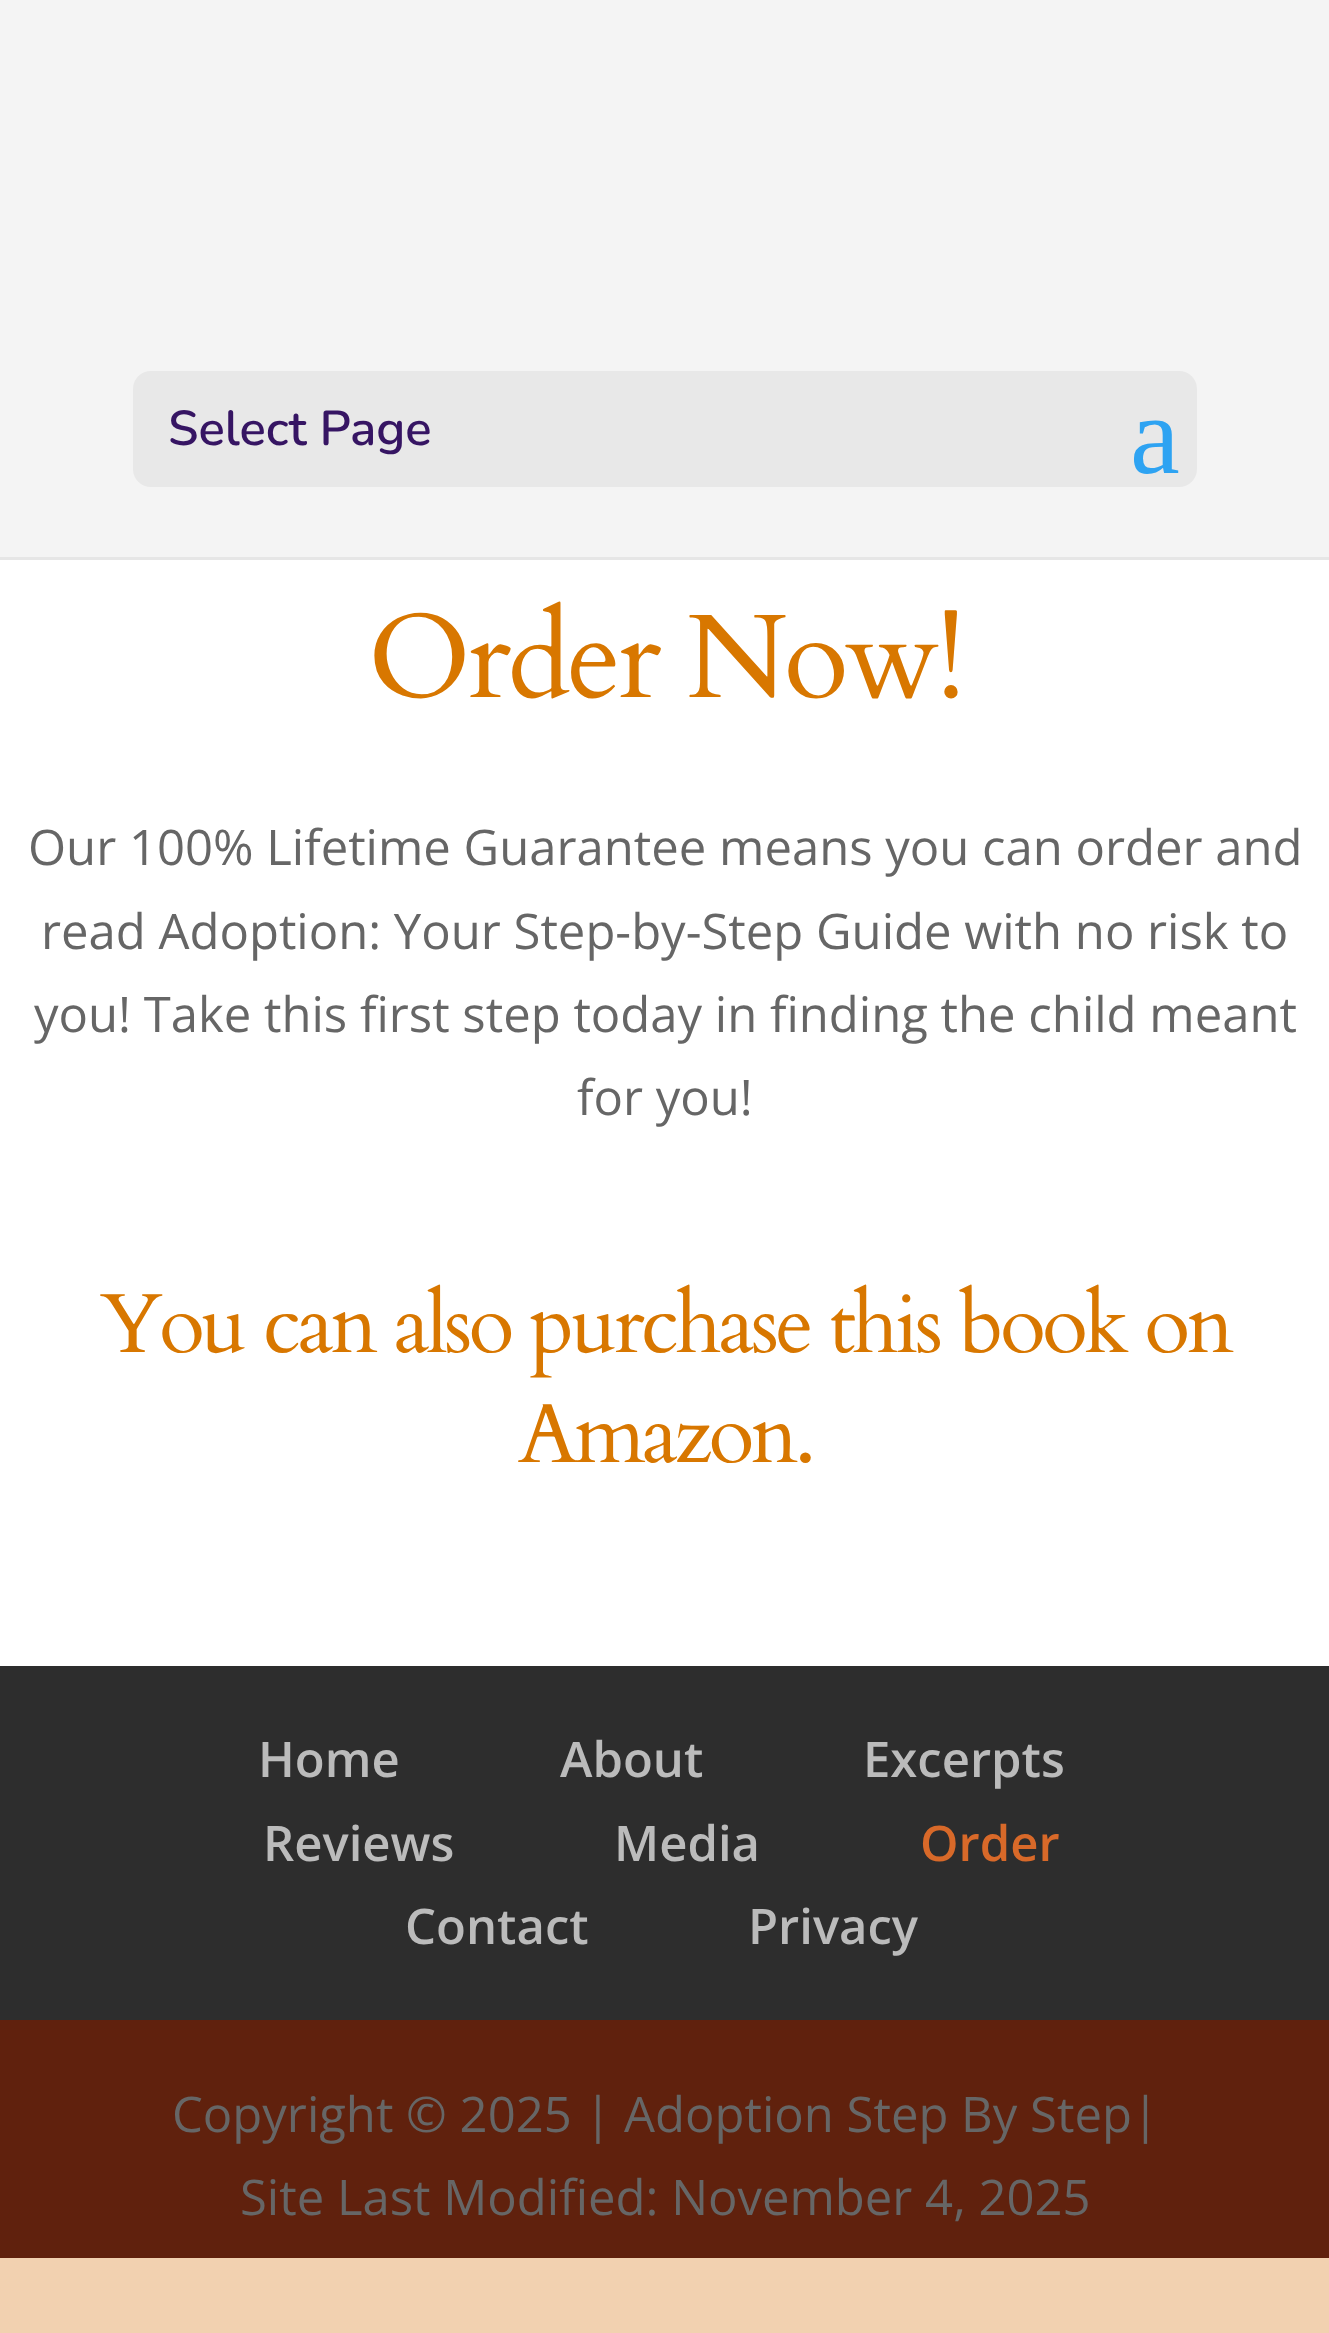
<!DOCTYPE html>
<meta charset="utf-8">
<style>body { margin: 0 } canvas { display: block }</style>
<canvas id="canvas" width="1329" height="2333"></canvas>
<script type="module">
  const canvas = document.getElementById("canvas");
  const ctx = canvas.getContext("2d");
  ctx.miterLimit = 4;
  ctx.fontKerning = "normal";

  ctx.fillStyle = "#f2d1b0";
  ctx.fillRect(0, 0, 1329, 2333);
  ctx.fillStyle = "#e6e6e6";
  ctx.fillRect(0, 557, 1329, 3);
  ctx.fillStyle = "#f4f4f4";
  ctx.fillRect(0, 0, 1329, 557);
  ctx.fillStyle = "#e8e8e8";
  ctx.beginPath();
  ctx.roundRect(133, 371, 1064, 116, 18);
  ctx.fill();
  ctx.font = "200 49px Nunito";
  ctx.fillStyle = "#361563";
  ctx.fillText("Select Page", 168, 445);
  ctx.font = "112px Liberation Serif";
  ctx.fillStyle = "#2ea3f2";
  ctx.fillText("a", 1130, 473);
  ctx.fillStyle = "#ffffff";
  ctx.fillRect(0, 560, 1329, 1106);
  ctx.letterSpacing = "-3.5px";
  ctx.font = "119px Cardo";
  ctx.fillStyle = "#d87700";
  ctx.fillText("Order Now!", 368, 697);
  ctx.letterSpacing = "0px";
  ctx.font = "49px Open Sans";
  ctx.fillStyle = "#666666";
  ctx.fillText("Our 100% Lifetime Guarantee means you can order and", 28, 865);
  ctx.fillText("read Adoption: Your Step-by-Step Guide with no risk to", 41, 949);
  ctx.fillText("you! Take this first step today in finding the child meant", 34, 1032);
  ctx.fillText("for you!", 577, 1115);
  ctx.letterSpacing = "-3.5px";
  ctx.font = "84px Cardo";
  ctx.fillStyle = "#d87700";
  ctx.fillText("You can also purchase this book on", 100, 1352);
  ctx.fillText("Amazon.", 518, 1462);
  ctx.fillStyle = "#2d2d2d";
  ctx.fillRect(0, 1666, 1329, 354);
  ctx.letterSpacing = "0px";
  ctx.font = "600 49px Open Sans";
  ctx.fillStyle = "#bbbbbb";
  ctx.fillText("Home", 258, 1777);
  ctx.fillText("About", 560, 1777);
  ctx.fillText("Excerpts", 863, 1777);
  ctx.fillText("Reviews", 263, 1861);
  ctx.fillText("Media", 614, 1861);
  ctx.fillStyle = "#d86929";
  ctx.fillText("Order", 920, 1861);
  ctx.fillStyle = "#bbbbbb";
  ctx.fillText("Contact", 405, 1944);
  ctx.fillText("Privacy", 748, 1944);
  ctx.fillStyle = "#60210d";
  ctx.fillRect(0, 2020, 1329, 238);
  ctx.font = "49px Open Sans";
  ctx.fillStyle = "#666666";
  ctx.fillText("Copyright © 2025 | Adoption Step By Step|", 172, 2132);
  ctx.fillText("Site Last Modified: November 4, 2025", 240, 2215);
</script>
